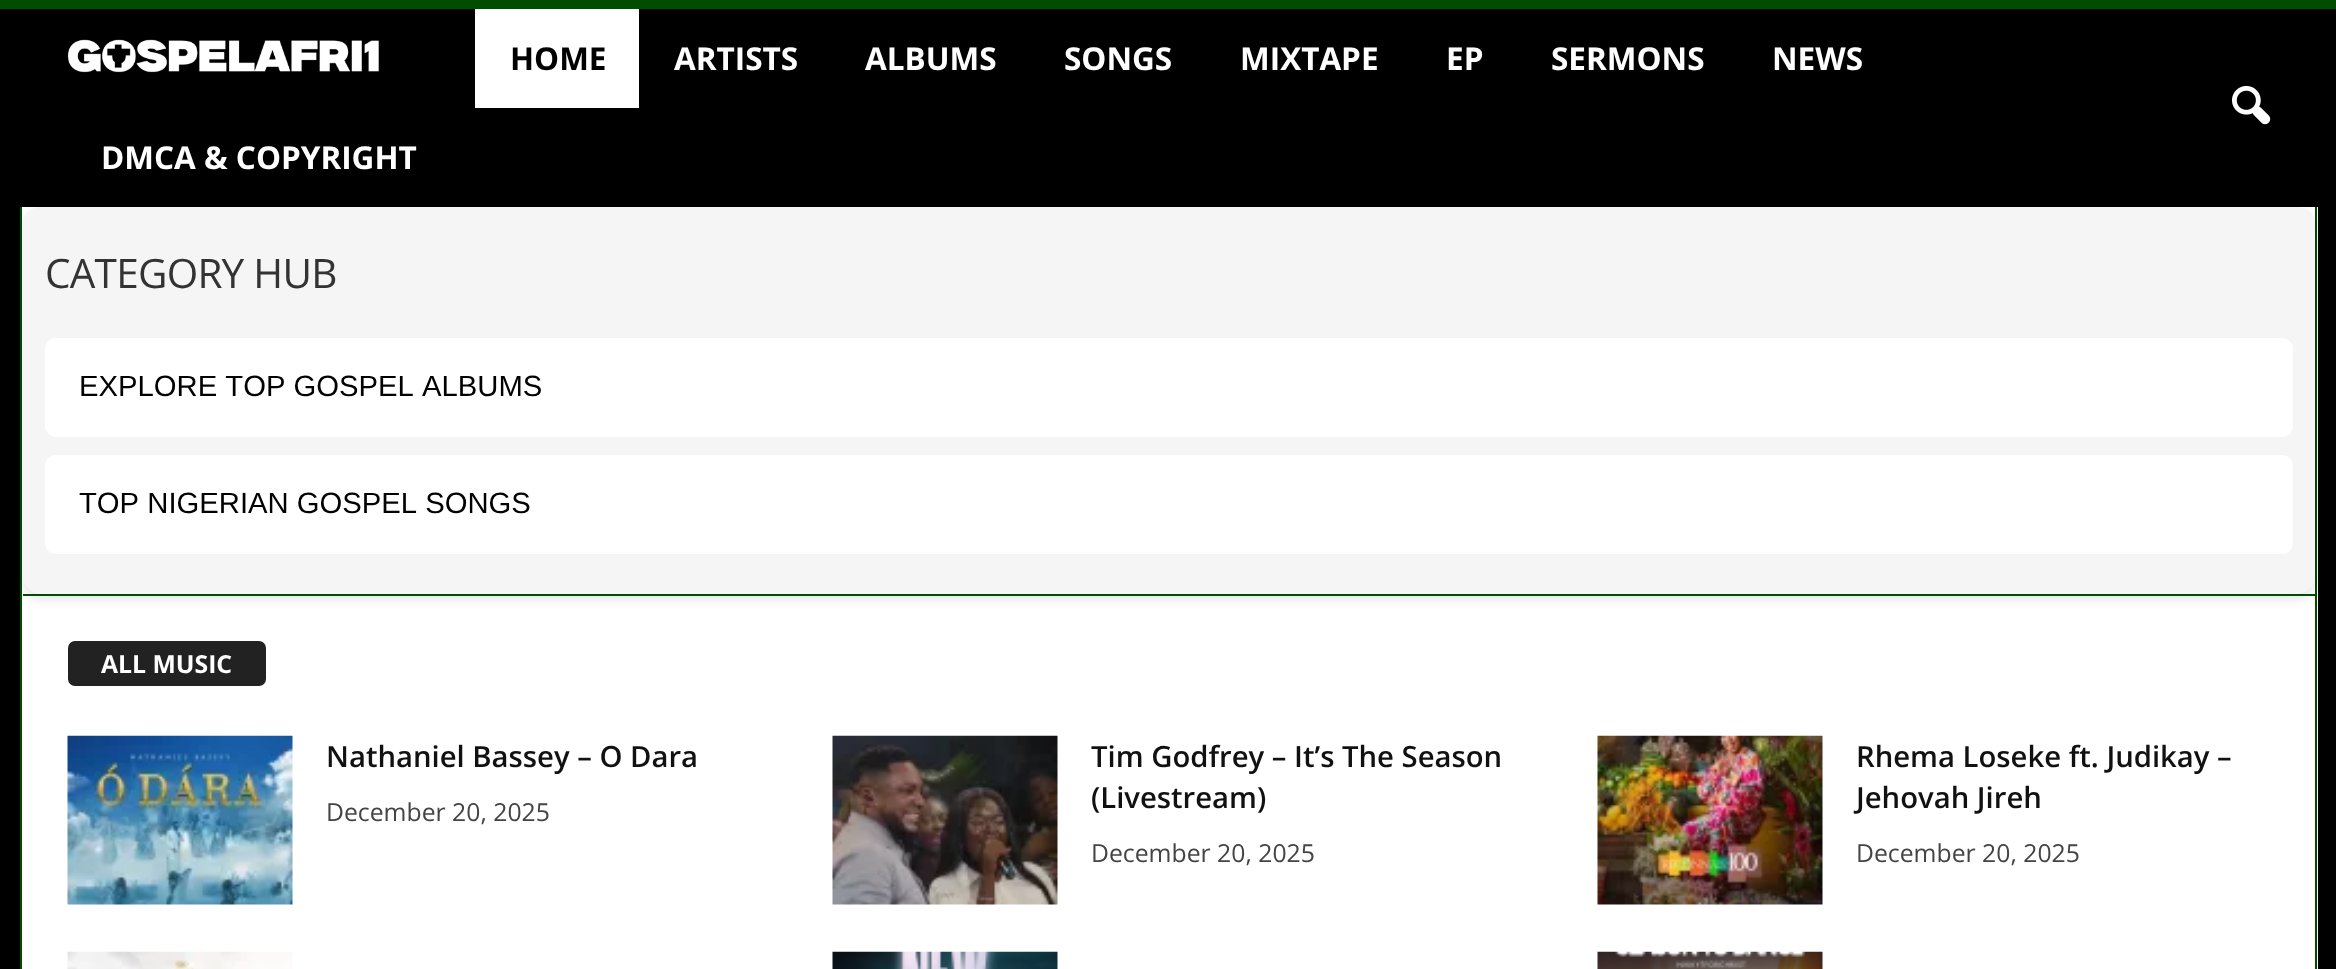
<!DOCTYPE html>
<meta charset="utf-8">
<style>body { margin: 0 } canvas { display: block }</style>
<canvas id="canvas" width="2336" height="969"></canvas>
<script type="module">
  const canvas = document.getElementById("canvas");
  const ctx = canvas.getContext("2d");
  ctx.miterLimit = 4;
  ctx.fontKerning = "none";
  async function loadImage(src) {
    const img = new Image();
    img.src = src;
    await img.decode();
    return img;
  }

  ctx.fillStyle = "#000000";
  ctx.fillRect(0, 0, 2336, 969);
  ctx.fillStyle = "#004d00";
  ctx.fillRect(0, 0, 2336, 9);
  ctx.drawImage(await loadImage("img1.png"), 67, 39, 312, 34);
  ctx.fillStyle = "#ffffff";
  ctx.fillRect(475, 9, 164, 99);
  ctx.font = "bold 31.5px Open Sans";
  ctx.fillStyle = "#000000";
  ctx.fillText("HOME", 510, 70);
  ctx.fillStyle = "#ffffff";
  ctx.fillText("ARTISTS", 674, 70);
  ctx.fillText("ALBUMS", 865, 70);
  ctx.fillText("SONGS", 1064, 70);
  ctx.fillText("MIXTAPE", 1240, 70);
  ctx.fillText("EP", 1446, 70);
  ctx.fillText("SERMONS", 1551, 70);
  ctx.fillText("NEWS", 1772, 70);
  ctx.fillText("DMCA & COPYRIGHT", 101, 169);
  ctx.drawImage(await loadImage("img2.png"), 2232, 85, 39, 40);
  ctx.fillRect(22, 207, 2296, 762);
  ctx.fillStyle = "#004d00";
  ctx.fillRect(20, 207, 2, 762);
  ctx.fillRect(2315, 207, 2, 762);
  ctx.fillStyle = "rgba(0, 0, 0, 0.1)";
  ctx.filter = "blur(5.5px)";
  ctx.beginPath();
  ctx.roundRect(23, 212, 2292, 387, 18);
  ctx.fill();
  ctx.filter = "none";
  ctx.fillStyle = "#f5f5f5";
  ctx.beginPath();
  ctx.roundRect(23, 207, 2292, 387, 18);
  ctx.fill();
  ctx.letterSpacing = "-0.75px";
  ctx.font = "40.5px Open Sans";
  ctx.fillStyle = "#333333";
  ctx.fillText("CATEGORY HUB", 45, 288);
  ctx.fillStyle = "#ffffff";
  ctx.beginPath();
  ctx.roundRect(45, 338, 2248, 99, 11);
  ctx.fill();
  ctx.letterSpacing = "0px";
  ctx.font = "29.25px Liberation Sans";
  ctx.fillStyle = "#000000";
  ctx.fillText("EXPLORE TOP GOSPEL ALBUMS", 79, 396);
  ctx.fillStyle = "#ffffff";
  ctx.beginPath();
  ctx.roundRect(45, 455, 2248, 99, 11);
  ctx.fill();
  ctx.fillStyle = "#000000";
  ctx.fillText("TOP NIGERIAN GOSPEL SONGS", 79, 513);
  ctx.fillStyle = "#004d00";
  ctx.fillRect(23, 594, 2292, 2);
  ctx.fillStyle = "#222222";
  ctx.beginPath();
  ctx.roundRect(68, 641, 198, 45, 7);
  ctx.fill();
  ctx.font = "bold 24.75px Open Sans";
  ctx.fillStyle = "#ffffff";
  ctx.fillText("ALL MUSIC", 101, 673);
  ctx.drawImage(await loadImage("img3.png"), 67, 735, 226, 170);
  ctx.font = "600 29.25px Open Sans";
  ctx.fillStyle = "#111111";
  ctx.fillText("Nathaniel Bassey – O Dara", 326, 767);
  ctx.font = "24.75px Open Sans";
  ctx.fillStyle = "#444444";
  ctx.fillText("December 20, 2025", 326, 821);
  ctx.drawImage(await loadImage("img4.png"), 832, 735, 226, 170);
  ctx.font = "600 29.25px Open Sans";
  ctx.fillStyle = "#111111";
  ctx.fillText("Tim Godfrey – It’s The Season", 1091, 767);
  ctx.fillText("(Livestream)", 1091, 808);
  ctx.font = "24.75px Open Sans";
  ctx.fillStyle = "#444444";
  ctx.fillText("December 20, 2025", 1091, 862);
  ctx.drawImage(await loadImage("img5.png"), 1597, 735, 226, 170);
  ctx.font = "600 29.25px Open Sans";
  ctx.fillStyle = "#111111";
  ctx.fillText("Rhema Loseke ft. Judikay –", 1856, 767);
  ctx.fillText("Jehovah Jireh", 1856, 808);
  ctx.font = "24.75px Open Sans";
  ctx.fillStyle = "#444444";
  ctx.fillText("December 20, 2025", 1856, 862);
  ctx.drawImage(await loadImage("img6.png"), 67, 951, 226, 18);
  ctx.drawImage(await loadImage("img7.png"), 832, 951, 226, 18);
  ctx.drawImage(await loadImage("img8.png"), 1597, 951, 226, 18);
</script>
